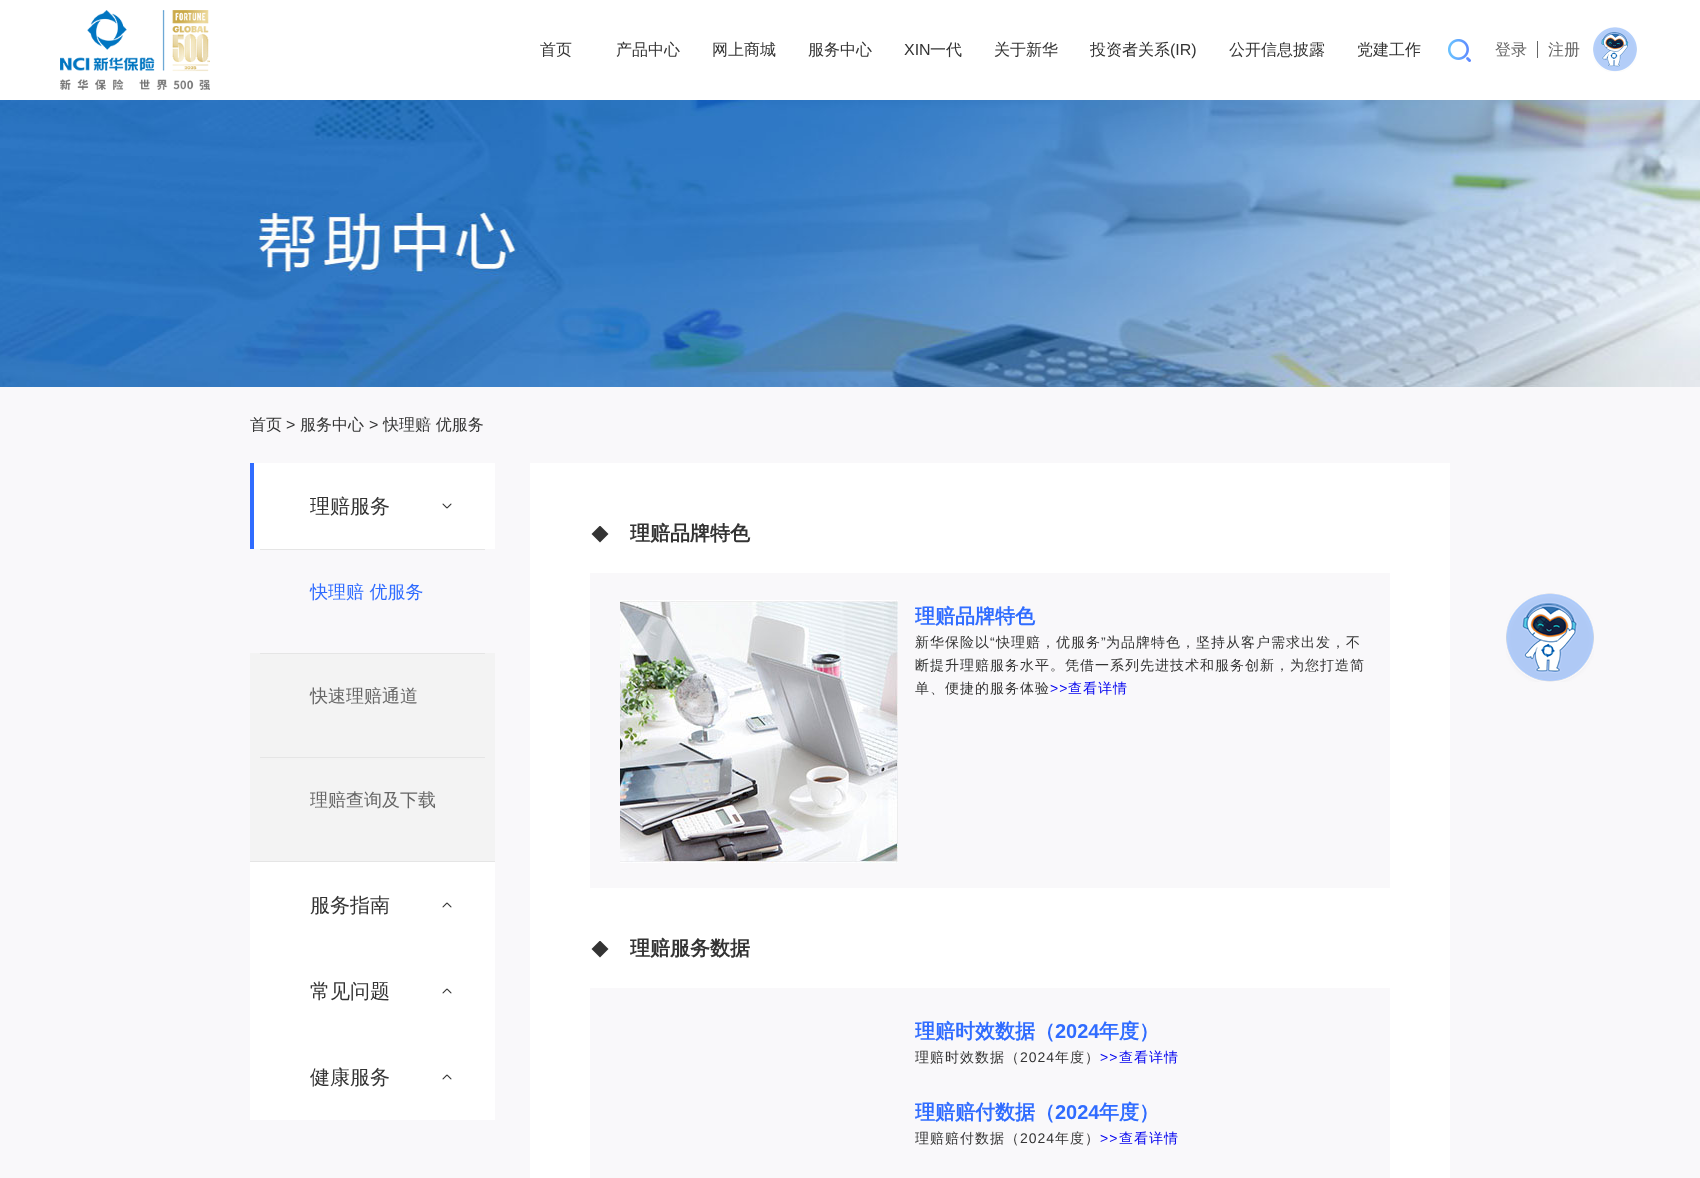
<!DOCTYPE html>
<meta charset="utf-8">
<style>body { margin: 0 } canvas { display: block }</style>
<canvas id="canvas" width="1700" height="1178"></canvas>
<script type="module">
  const canvas = document.getElementById("canvas");
  const ctx = canvas.getContext("2d");
  ctx.miterLimit = 4;
  ctx.fontKerning = "normal";
  async function loadImage(src) {
    const img = new Image();
    img.src = src;
    await img.decode();
    return img;
  }

  ctx.fillStyle = "#ffffff";
  ctx.fillRect(0, 0, 1700, 1178);
  ctx.drawImage(await loadImage("img1.png"), 60, 10, 150, 80);
  ctx.font = "500 16px WenQuanYi Zen Hei";
  ctx.fillStyle = "#333333";
  ctx.fillText("首页", 540, 55);
  ctx.fillText("产品中心", 616, 55);
  ctx.fillText("网上商城", 712, 55);
  ctx.fillText("服务中心", 808, 55);
  ctx.font = "16px Liberation Sans";
  ctx.fillText("XIN", 904, 55);
  ctx.font = "500 16px WenQuanYi Zen Hei";
  ctx.fillText("一代", 930, 55);
  ctx.fillText("关于新华", 994, 55);
  ctx.fillText("投资者关系", 1090, 55);
  ctx.font = "16px Liberation Sans";
  ctx.fillText("(IR)", 1170, 55);
  ctx.font = "500 16px WenQuanYi Zen Hei";
  ctx.fillText("公开信息披露", 1229, 55);
  ctx.fillText("党建工作", 1357, 55);
  ctx.drawImage(await loadImage("img2.png"), 1448, 39, 23, 23);
  ctx.fillStyle = "#666666";
  ctx.fillText("登录", 1495, 55);
  ctx.fillRect(1537, 41, 1, 17);
  ctx.fillText("注册", 1548, 55);
  ctx.drawImage(await loadImage("img3.png"), 1593, 27, 44, 45);
  ctx.fillStyle = "#f9f8fa";
  ctx.fillRect(0, 387, 1700, 791);
  ctx.drawImage(await loadImage("img4.png"), 0, 100, 1700, 287);
  ctx.fillStyle = "#333333";
  ctx.fillText("首页", 250, 430);
  ctx.font = "16px Liberation Sans";
  ctx.fillText(">", 286, 430);
  ctx.font = "500 16px WenQuanYi Zen Hei";
  ctx.fillText("服务中心", 300, 430);
  ctx.font = "16px Liberation Sans";
  ctx.fillText(">", 369, 430);
  ctx.font = "500 16px WenQuanYi Zen Hei";
  ctx.fillText("快理赔 优服务", 383, 430);
  ctx.fillStyle = "#ffffff";
  ctx.fillRect(250, 463, 245, 657);
  ctx.fillStyle = "#306cff";
  ctx.fillRect(250, 463, 4, 86);
  ctx.font = "500 20px WenQuanYi Zen Hei";
  ctx.fillStyle = "#333333";
  ctx.fillText("理赔服务", 310, 513);
  ctx.drawImage(await loadImage("img5.png"), 442, 503, 10, 6);
  ctx.fillStyle = "#f3f3f3";
  ctx.fillRect(250, 653, 245, 208);
  ctx.fillStyle = "#e5e5e5";
  ctx.fillRect(250, 861, 245, 1);
  ctx.fillStyle = "#f9f8fa";
  ctx.fillRect(250, 549, 245, 104);
  ctx.fillStyle = "#e5e5e5";
  ctx.fillRect(260, 549, 225, 1);
  ctx.font = "500 18px WenQuanYi Zen Hei";
  ctx.fillStyle = "#306cff";
  ctx.fillText("快理赔 优服务", 310, 598);
  ctx.fillStyle = "#e5e5e5";
  ctx.fillRect(260, 653, 225, 1);
  ctx.fillStyle = "#666666";
  ctx.fillText("快速理赔通道", 310, 702);
  ctx.fillStyle = "#e5e5e5";
  ctx.fillRect(260, 757, 225, 1);
  ctx.fillStyle = "#666666";
  ctx.fillText("理赔查询及下载", 310, 806);
  ctx.font = "500 20px WenQuanYi Zen Hei";
  ctx.fillStyle = "#333333";
  ctx.fillText("服务指南", 310, 912);
  ctx.drawImage(await loadImage("img6.png"), 442, 902, 10, 6);
  ctx.fillText("常见问题", 310, 998);
  ctx.drawImage(await loadImage("img6.png"), 442, 988, 10, 6);
  ctx.fillText("健康服务", 310, 1084);
  ctx.drawImage(await loadImage("img6.png"), 442, 1074, 10, 6);
  ctx.fillStyle = "#ffffff";
  ctx.fillRect(530, 463, 920, 715);
  ctx.drawImage(await loadImage("img7.png"), 591, 526, 18, 17);
  ctx.font = "bold 20px WenQuanYi Zen Hei";
  ctx.fillStyle = "#333333";
  ctx.fillText("理赔品牌特色", 630, 540);
  ctx.fillStyle = "#f9f8fa";
  ctx.fillRect(590, 573, 800, 315);
  ctx.drawImage(await loadImage("img8.png"), 620, 600, 278, 263);
  ctx.fillStyle = "#306cff";
  ctx.fillText("理赔品牌特色", 915, 623);
  ctx.letterSpacing = "1px";
  ctx.font = "500 14px WenQuanYi Zen Hei";
  ctx.fillStyle = "#333333";
  ctx.fillText("新华保险以", 915, 647);
  ctx.font = "14px Liberation Sans";
  ctx.fillText("“", 990, 647);
  ctx.font = "500 14px WenQuanYi Zen Hei";
  ctx.fillText("快理赔，优服务", 996, 647);
  ctx.font = "14px Liberation Sans";
  ctx.fillText("”", 1101, 647);
  ctx.font = "500 14px WenQuanYi Zen Hei";
  ctx.fillText("为品牌特色，坚持从客户需求出发，不", 1106, 647);
  ctx.fillText("断提升理赔服务水平。凭借一系列先进技术和服务创新，为您打造简", 915, 670);
  ctx.fillText("单、便捷的服务体验", 915, 693);
  ctx.font = "14px Liberation Sans";
  ctx.fillStyle = "#0000ee";
  ctx.fillText(">>", 1050, 693);
  ctx.font = "500 14px WenQuanYi Zen Hei";
  ctx.fillText("查看详情", 1068, 693);
  ctx.drawImage(await loadImage("img7.png"), 591, 941, 18, 17);
  ctx.letterSpacing = "0px";
  ctx.font = "bold 20px WenQuanYi Zen Hei";
  ctx.fillStyle = "#333333";
  ctx.fillText("理赔服务数据", 630, 955);
  ctx.fillStyle = "#f9f8fa";
  ctx.fillRect(590, 988, 800, 190);
  ctx.fillStyle = "#306cff";
  ctx.fillText("理赔时效数据（", 915, 1038);
  ctx.font = "bold 20px Liberation Sans";
  ctx.fillText("2024", 1055, 1038);
  ctx.font = "bold 20px WenQuanYi Zen Hei";
  ctx.fillText("年度）", 1099, 1038);
  ctx.letterSpacing = "1px";
  ctx.font = "500 14px WenQuanYi Zen Hei";
  ctx.fillStyle = "#333333";
  ctx.fillText("理赔时效数据（", 915, 1062);
  ctx.font = "14px Liberation Sans";
  ctx.fillText("2024", 1020, 1062);
  ctx.font = "500 14px WenQuanYi Zen Hei";
  ctx.fillText("年度）", 1055, 1062);
  ctx.font = "14px Liberation Sans";
  ctx.fillStyle = "#0000ee";
  ctx.fillText(">>", 1100, 1062);
  ctx.font = "500 14px WenQuanYi Zen Hei";
  ctx.fillText("查看详情", 1119, 1062);
  ctx.letterSpacing = "0px";
  ctx.font = "bold 20px WenQuanYi Zen Hei";
  ctx.fillStyle = "#306cff";
  ctx.fillText("理赔赔付数据（", 915, 1119);
  ctx.font = "bold 20px Liberation Sans";
  ctx.fillText("2024", 1055, 1119);
  ctx.font = "bold 20px WenQuanYi Zen Hei";
  ctx.fillText("年度）", 1099, 1119);
  ctx.letterSpacing = "1px";
  ctx.font = "500 14px WenQuanYi Zen Hei";
  ctx.fillStyle = "#333333";
  ctx.fillText("理赔赔付数据（", 915, 1143);
  ctx.font = "14px Liberation Sans";
  ctx.fillText("2024", 1020, 1143);
  ctx.font = "500 14px WenQuanYi Zen Hei";
  ctx.fillText("年度）", 1055, 1143);
  ctx.font = "14px Liberation Sans";
  ctx.fillStyle = "#0000ee";
  ctx.fillText(">>", 1100, 1143);
  ctx.font = "500 14px WenQuanYi Zen Hei";
  ctx.fillText("查看详情", 1119, 1143);
  ctx.drawImage(await loadImage("img9.png"), 1506, 593, 88, 89);
</script>
